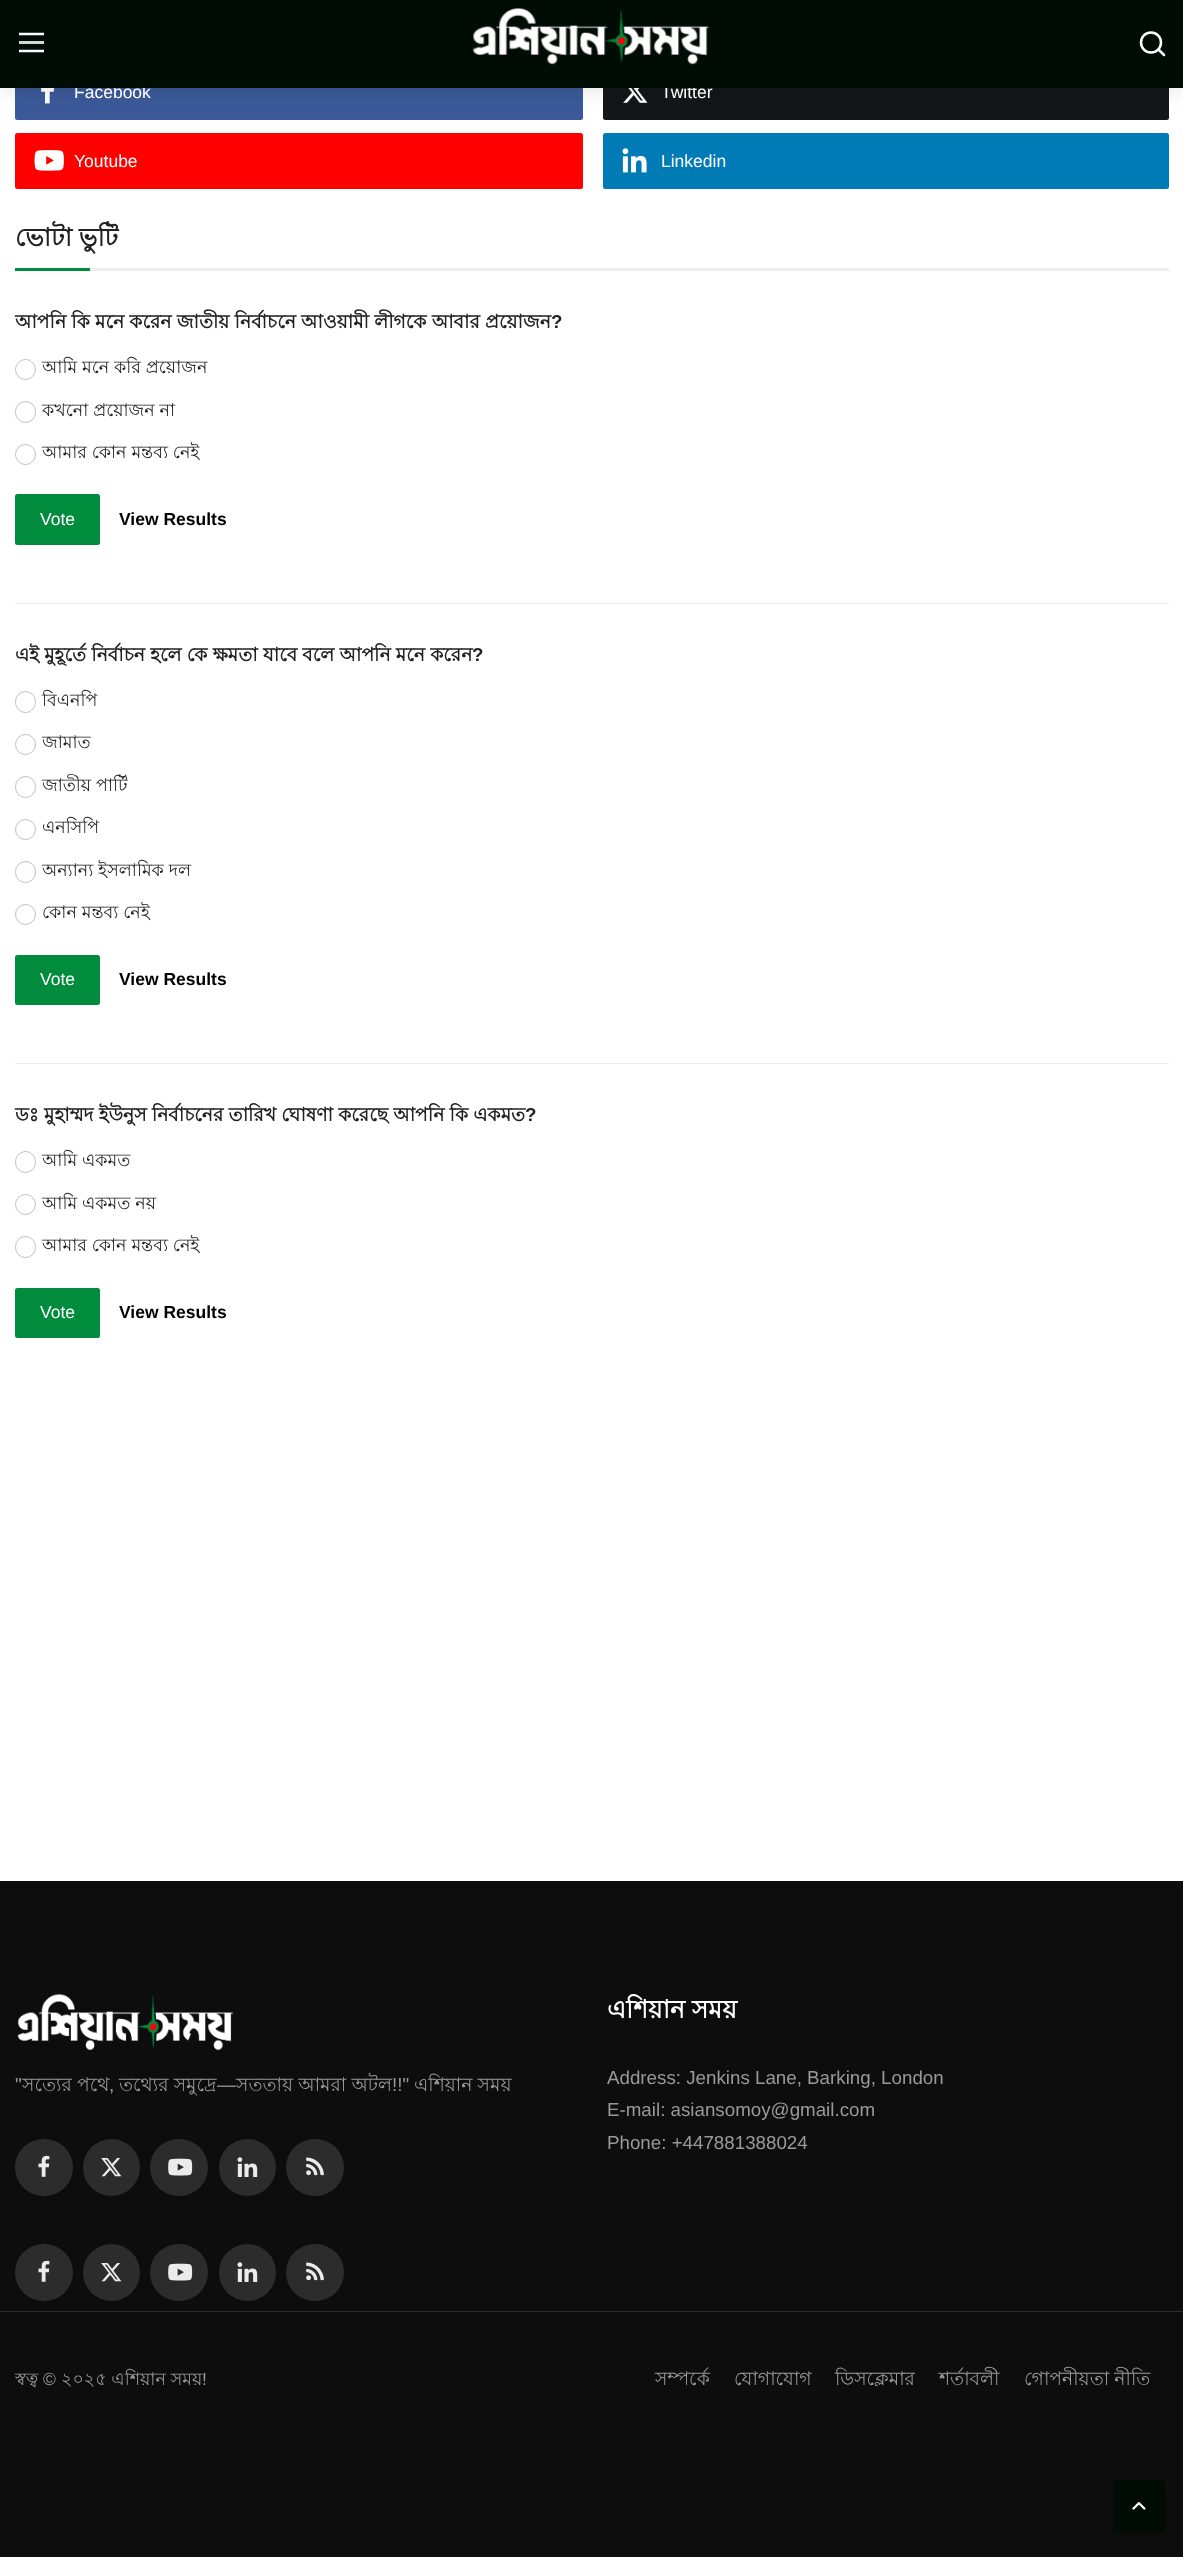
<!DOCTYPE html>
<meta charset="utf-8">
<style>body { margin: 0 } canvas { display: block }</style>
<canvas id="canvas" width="1183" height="2557"></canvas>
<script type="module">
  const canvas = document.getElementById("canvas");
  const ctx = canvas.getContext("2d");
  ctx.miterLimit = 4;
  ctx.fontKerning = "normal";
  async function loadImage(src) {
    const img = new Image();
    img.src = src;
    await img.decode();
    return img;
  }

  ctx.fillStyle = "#ffffff";
  ctx.fillRect(0, 0, 1183, 2557);
  ctx.fillStyle = "#3b5998";
  ctx.beginPath();
  ctx.roundRect(15, 64, 568, 56, 2.5);
  ctx.fill();
  ctx.drawImage(await loadImage("img2.png"), 41, 88, 14, 16);
  ctx.fillStyle = "#14171a";
  ctx.beginPath();
  ctx.roundRect(603, 64, 566, 56, 2.5);
  ctx.fill();
  ctx.drawImage(await loadImage("img3.png"), 623, 88, 25, 15);
  ctx.fillStyle = "rgba(0, 0, 0, 0.1)";
  ctx.filter = "blur(9.5px)";
  ctx.beginPath();
  ctx.rect(0, 3, 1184, 87);
  ctx.fill();
  ctx.filter = "none";
  ctx.font = "17.5px Liberation Sans";
  ctx.fillStyle = "#ffffff";
  ctx.fillText("Facebook", 74, 98);
  ctx.fillText("Twitter", 661, 98);
  ctx.fillStyle = "#010c05";
  ctx.fillRect(0, 0, 1183, 88);
  ctx.beginPath();
  ctx.moveTo(19, 34);
  ctx.lineTo(44, 34);
  ctx.strokeStyle = "#ffffff";
  ctx.lineWidth = 2.5;
  ctx.stroke();
  ctx.fillStyle = "#d5d7d5";
  ctx.fillRect(19, 41, 25, 3);
  ctx.beginPath();
  ctx.moveTo(19, 51);
  ctx.lineTo(44, 51);
  ctx.stroke();
  ctx.drawImage(await loadImage("img1.png"), 472, 8, 237, 57);
  ctx.beginPath();
  ctx.arc(1151, 42.5, 10, 0, Math.PI * 2);
  ctx.stroke();
  ctx.beginPath();
  ctx.moveTo(1164, 55);
  ctx.lineTo(1158.5, 49.5);
  ctx.lineCap = "round";
  ctx.lineJoin = "round";
  ctx.stroke();
  ctx.fillStyle = "#ff0000";
  ctx.beginPath();
  ctx.roundRect(15, 133, 568, 56, 2.5);
  ctx.fill();
  ctx.drawImage(await loadImage("img4.png"), 34, 150, 30, 21);
  ctx.fillStyle = "#ffffff";
  ctx.fillText("Youtube", 74, 167);
  ctx.fillStyle = "#007bb5";
  ctx.beginPath();
  ctx.roundRect(603, 133, 566, 56, 2.5);
  ctx.fill();
  ctx.drawImage(await loadImage("img5.png"), 622, 148, 25, 25);
  ctx.fillStyle = "#ffffff";
  ctx.fillText("Linkedin", 661, 167);
  ctx.fillStyle = "#eeeeee";
  ctx.fillRect(90, 268, 1079, 3);
  ctx.font = "bold 25px Lohit Bengali";
  ctx.fillStyle = "#222222";
  ctx.fillText("ভোটা ভুটি", 15, 246);
  ctx.fillStyle = "#008c3c";
  ctx.fillRect(15, 268, 75, 3);
  ctx.fillStyle = "#eeeeee";
  ctx.fillRect(15, 603, 1154, 1);
  ctx.font = "bold 18.75px Lohit Bengali";
  ctx.fillStyle = "#222222";
  ctx.fillText("আপনি কি মনে করেন জাতীয় নির্বাচনে আওয়ামী লীগকে আবার প্রয়োজন", 15, 328);
  ctx.font = "bold 18.75px Liberation Sans";
  ctx.fillText("?", 551, 328);
  ctx.beginPath();
  ctx.arc(25.5, 369.5, 10, 0, Math.PI * 2);
  ctx.strokeStyle = "#bfbfbf";
  ctx.lineWidth = 1;
  ctx.stroke();
  ctx.font = "17.5px Lohit Bengali";
  ctx.fillText("আমি মনে করি প্রয়োজন", 42, 373);
  ctx.beginPath();
  ctx.roundRect(15.5, 401.5, 20, 21, 10);
  ctx.lineJoin = "miter";
  ctx.stroke();
  ctx.fillText("কখনো প্রয়োজন না", 42, 416);
  ctx.beginPath();
  ctx.arc(25.5, 454.5, 10, 0, Math.PI * 2);
  ctx.stroke();
  ctx.fillText("আমার কোন মন্তব্য নেই", 42, 458);
  ctx.fillStyle = "#008c3c";
  ctx.beginPath();
  ctx.roundRect(15, 494, 85, 51, 2.5);
  ctx.fill();
  ctx.font = "17.5px Liberation Sans";
  ctx.fillStyle = "#ffffff";
  ctx.fillText("Vote", 40, 525);
  ctx.font = "bold 17.5px Liberation Sans";
  ctx.fillStyle = "#000000";
  ctx.fillText("View Results", 119, 525);
  ctx.fillStyle = "#eeeeee";
  ctx.fillRect(15, 1063, 1154, 1);
  ctx.font = "bold 18.75px Lohit Bengali";
  ctx.fillStyle = "#222222";
  ctx.fillText("এই মুহূর্তে নির্বাচন হলে কে ক্ষমতা যাবে বলে আপনি মনে করেন", 15, 661);
  ctx.font = "bold 18.75px Liberation Sans";
  ctx.fillText("?", 472, 661);
  ctx.beginPath();
  ctx.roundRect(15.5, 691.5, 20, 21, 10);
  ctx.stroke();
  ctx.font = "17.5px Lohit Bengali";
  ctx.fillText("বিএনপি", 42, 706);
  ctx.beginPath();
  ctx.arc(25.5, 744.5, 10, 0, Math.PI * 2);
  ctx.stroke();
  ctx.fillText("জামাত", 42, 748);
  ctx.beginPath();
  ctx.roundRect(15.5, 776.5, 20, 21, 10);
  ctx.stroke();
  ctx.fillText("জাতীয় পার্টি", 42, 791);
  ctx.beginPath();
  ctx.arc(25.5, 829.5, 10, 0, Math.PI * 2);
  ctx.stroke();
  ctx.fillText("এনসিপি", 42, 833);
  ctx.beginPath();
  ctx.roundRect(15.5, 861.5, 20, 21, 10);
  ctx.stroke();
  ctx.fillText("অন্যান্য ইসলামিক দল", 42, 876);
  ctx.beginPath();
  ctx.arc(25.5, 914.5, 10, 0, Math.PI * 2);
  ctx.stroke();
  ctx.fillText("কোন মন্তব্য নেই", 42, 918);
  ctx.fillStyle = "#008c3c";
  ctx.beginPath();
  ctx.roundRect(15, 955, 85, 50, 2.5);
  ctx.fill();
  ctx.font = "17.5px Liberation Sans";
  ctx.fillStyle = "#ffffff";
  ctx.fillText("Vote", 40, 985);
  ctx.font = "bold 17.5px Liberation Sans";
  ctx.fillStyle = "#000000";
  ctx.fillText("View Results", 119, 985);
  ctx.font = "bold 18.75px Lohit Bengali";
  ctx.fillStyle = "#222222";
  ctx.fillText("ডঃ মুহাম্মদ ইউনুস নির্বাচনের তারিখ ঘোষণা করেছে আপনি কি একমত", 15, 1121);
  ctx.font = "bold 18.75px Liberation Sans";
  ctx.fillText("?", 525, 1121);
  ctx.beginPath();
  ctx.roundRect(15.5, 1151.5, 20, 21, 10);
  ctx.stroke();
  ctx.font = "17.5px Lohit Bengali";
  ctx.fillText("আমি একমত", 42, 1166);
  ctx.beginPath();
  ctx.arc(25.5, 1204.5, 10, 0, Math.PI * 2);
  ctx.stroke();
  ctx.fillText("আমি একমত নয়", 42, 1209);
  ctx.beginPath();
  ctx.roundRect(15.5, 1236.5, 20, 21, 10);
  ctx.stroke();
  ctx.fillText("আমার কোন মন্তব্য নেই", 42, 1251);
  ctx.fillStyle = "#008c3c";
  ctx.beginPath();
  ctx.roundRect(15, 1288, 85, 50, 2.5);
  ctx.fill();
  ctx.font = "17.5px Liberation Sans";
  ctx.fillStyle = "#ffffff";
  ctx.fillText("Vote", 40, 1318);
  ctx.font = "bold 17.5px Liberation Sans";
  ctx.fillStyle = "#000000";
  ctx.fillText("View Results", 119, 1318);
  ctx.fillStyle = "#0d0d0d";
  ctx.fillRect(0, 1881, 1183, 676);
  ctx.drawImage(await loadImage("img6.png"), 17, 1994, 217, 57);
  ctx.font = "18.75px Liberation Sans";
  ctx.fillStyle = "#999999";
  ctx.fillText("\"", 15, 2091);
  ctx.font = "18.75px Lohit Bengali";
  ctx.fillText("সত্যের পথে", 22, 2091);
  ctx.fillText("তথ্যের সমুদ্রে", 119, 2091);
  ctx.font = "18.75px Liberation Sans";
  ctx.fillText("—", 217, 2091);
  ctx.font = "18.75px Lohit Bengali";
  ctx.fillText("সততায় আমরা অটল", 236, 2091);
  ctx.font = "18.75px Liberation Sans";
  ctx.fillText("!!\"", 392, 2091);
  ctx.font = "18.75px Lohit Bengali";
  ctx.fillText("এশিয়ান সময়", 414, 2091);
  ctx.font = "18.75px Liberation Sans";
  ctx.fillText(",", 109, 2091);
  ctx.fillStyle = "#2c2c2c";
  ctx.beginPath();
  ctx.roundRect(15, 2139, 58, 57, 28.5);
  ctx.fill();
  ctx.drawImage(await loadImage("img7.png"), 38, 2155, 12, 22);
  ctx.beginPath();
  ctx.arc(111.5, 2167.5, 28.5, 0, Math.PI * 2);
  ctx.fill();
  ctx.drawImage(await loadImage("img8.png"), 101, 2158, 21, 19);
  ctx.beginPath();
  ctx.roundRect(150, 2139, 58, 57, 28.5);
  ctx.fill();
  ctx.drawImage(await loadImage("img9.png"), 168, 2158, 25, 18);
  ctx.beginPath();
  ctx.arc(247.5, 2167.5, 28.5, 0, Math.PI * 2);
  ctx.fill();
  ctx.drawImage(await loadImage("img10.png"), 237, 2157, 21, 20);
  ctx.beginPath();
  ctx.roundRect(286, 2139, 58, 57, 28.5);
  ctx.fill();
  ctx.drawImage(await loadImage("img11.png"), 306, 2157, 18, 19);
  ctx.font = "bold 25px Lohit Bengali";
  ctx.fillStyle = "#ffffff";
  ctx.fillText("এশিয়ান সময়", 607, 2018);
  ctx.font = "18.75px Liberation Sans";
  ctx.fillStyle = "#999999";
  ctx.fillText("Address: Jenkins Lane, Barking, London", 607, 2084);
  ctx.fillText("E-mail: asiansomoy@gmail.com", 607, 2116);
  ctx.fillText("Phone: +447881388024", 607, 2149);
  ctx.fillStyle = "#2c2c2c";
  ctx.beginPath();
  ctx.roundRect(15, 2244, 58, 57, 28.5);
  ctx.fill();
  ctx.drawImage(await loadImage("img7.png"), 38, 2260, 12, 22);
  ctx.beginPath();
  ctx.arc(111.5, 2272.5, 28.5, 0, Math.PI * 2);
  ctx.fill();
  ctx.drawImage(await loadImage("img8.png"), 101, 2263, 21, 19);
  ctx.beginPath();
  ctx.roundRect(150, 2244, 58, 57, 28.5);
  ctx.fill();
  ctx.drawImage(await loadImage("img9.png"), 168, 2263, 25, 18);
  ctx.beginPath();
  ctx.arc(247.5, 2272.5, 28.5, 0, Math.PI * 2);
  ctx.fill();
  ctx.drawImage(await loadImage("img10.png"), 237, 2262, 21, 20);
  ctx.beginPath();
  ctx.roundRect(286, 2244, 58, 57, 28.5);
  ctx.fill();
  ctx.drawImage(await loadImage("img11.png"), 306, 2262, 18, 19);
  ctx.fillRect(0, 2311, 1183, 1);
  ctx.font = "17.5px Lohit Bengali";
  ctx.fillStyle = "#999999";
  ctx.fillText("স্বত্ব", 15, 2385);
  ctx.font = "17.5px Liberation Sans";
  ctx.fillText("©", 43, 2385);
  ctx.font = "17.5px Lohit Bengali";
  ctx.fillText("২০২৫ এশিয়ান সময়", 61, 2385);
  ctx.font = "17.5px Liberation Sans";
  ctx.fillText("!", 202, 2385);
  ctx.font = "18.75px Lohit Bengali";
  ctx.fillText("সম্পর্কে", 655, 2385);
  ctx.fillText("যোগাযোগ", 734, 2385);
  ctx.fillText("ডিসক্লেমার", 835, 2385);
  ctx.fillText("শর্তাবলী", 939, 2385);
  ctx.fillText("গোপনীয়তা নীতি", 1024, 2385);
  ctx.fillStyle = "#010c05";
  ctx.beginPath();
  ctx.roundRect(1113, 2480, 52, 53, 2.5);
  ctx.fill();
  ctx.drawImage(await loadImage("img12.png"), 1132, 2502, 14, 8);
</script>
